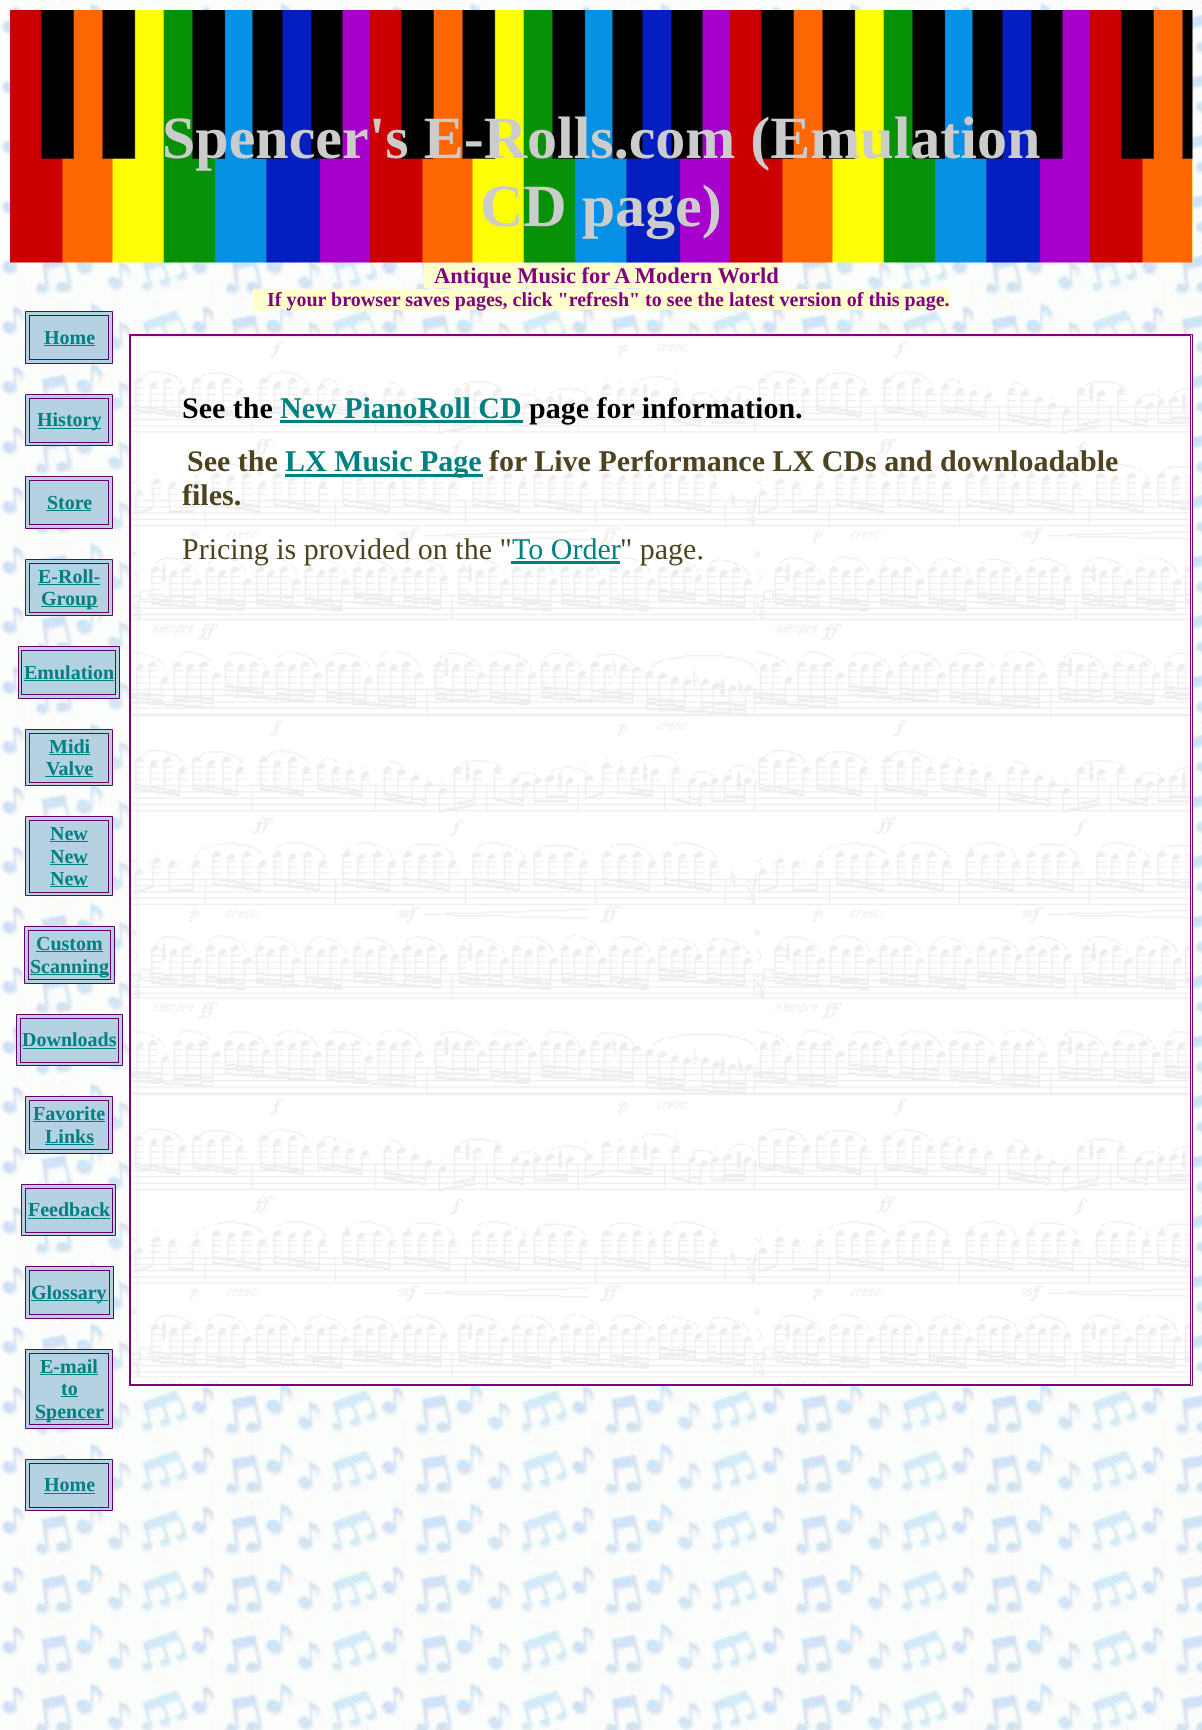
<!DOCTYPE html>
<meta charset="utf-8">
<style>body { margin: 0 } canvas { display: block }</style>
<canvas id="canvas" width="1202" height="1730"></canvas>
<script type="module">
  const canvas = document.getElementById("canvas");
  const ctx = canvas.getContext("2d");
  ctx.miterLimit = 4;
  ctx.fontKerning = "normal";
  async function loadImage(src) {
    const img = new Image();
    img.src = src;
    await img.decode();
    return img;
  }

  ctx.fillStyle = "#ffffff";
  ctx.fillRect(0, 0, 1202, 1730);
  ctx.drawImage(await loadImage("img1.png"), 0, 0, 1202, 1730);
  ctx.drawImage(await loadImage("img2.png"), 10, 10, 1183, 253);
  ctx.font = "bold 60px Liberation Serif";
  ctx.fillStyle = "#cccccc";
  ctx.fillText("Spencer's E-Rolls.com (Emulation", 162, 158);
  ctx.fillText("CD page)", 480, 226);
  ctx.fillStyle = "#ffffcc";
  ctx.fillRect(424, 263, 355, 25);
  ctx.font = "bold 22.5px Liberation Serif";
  ctx.fillStyle = "#800080";
  ctx.fillText("Antique Music for A Modern World", 434, 283);
  ctx.fillStyle = "#ffffcc";
  ctx.fillRect(253, 289, 697, 21);
  ctx.font = "bold 20px Liberation Serif";
  ctx.fillStyle = "#800080";
  ctx.fillText("If your browser saves pages, click \"refresh\" to see the latest version of this page.", 267, 306);
  ctx.fillStyle = "#b4d2e2";
  ctx.beginPath();
  ctx.rect(25.5, 311.5, 87, 52);
  ctx.fill();
  ctx.strokeStyle = "#660066";
  ctx.stroke();
  ctx.strokeRect(29.5, 315.5, 79, 44);
  ctx.fillStyle = "#008080";
  ctx.fillText("Home", 44, 344);
  ctx.fillRect(44, 345, 51, 1);
  ctx.fillStyle = "#b4d2e2";
  ctx.beginPath();
  ctx.rect(25.5, 394.5, 87, 51);
  ctx.fill();
  ctx.stroke();
  ctx.strokeRect(29.5, 398.5, 79, 44);
  ctx.fillStyle = "#008080";
  ctx.fillRect(38, 428, 63, 1);
  ctx.fillText("History", 37, 426);
  ctx.fillStyle = "#b4d2e2";
  ctx.beginPath();
  ctx.rect(25.5, 476.5, 87, 52);
  ctx.fill();
  ctx.stroke();
  ctx.strokeRect(29.5, 480.5, 79, 44);
  ctx.fillStyle = "#008080";
  ctx.fillText("Store", 47, 509);
  ctx.fillRect(46, 510, 45, 1);
  ctx.fillStyle = "#b4d2e2";
  ctx.beginPath();
  ctx.rect(25.5, 559.5, 87, 56);
  ctx.fill();
  ctx.strokeStyle = "#660660";
  ctx.stroke();
  ctx.strokeRect(29.5, 563.5, 79, 49);
  ctx.fillStyle = "#008080";
  ctx.fillText("E-Roll-", 38, 583);
  ctx.fillRect(38, 584, 62, 1);
  ctx.fillRect(41, 606, 57, 1);
  ctx.fillText("Group", 41, 605);
  ctx.fillStyle = "#b4d2e2";
  ctx.beginPath();
  ctx.rect(18.5, 646.5, 101, 52);
  ctx.fill();
  ctx.strokeStyle = "#660066";
  ctx.stroke();
  ctx.strokeRect(21.5, 650.5, 94, 44);
  ctx.fillStyle = "#008080";
  ctx.fillText("Emulation", 24, 679);
  ctx.fillRect(24, 680, 90, 1);
  ctx.fillStyle = "#b4d2e2";
  ctx.beginPath();
  ctx.rect(25.5, 729.5, 87, 56);
  ctx.fill();
  ctx.strokeStyle = "#660660";
  ctx.stroke();
  ctx.strokeRect(29.5, 733.5, 79, 49);
  ctx.fillStyle = "#008080";
  ctx.fillText("Midi", 49, 753);
  ctx.fillRect(49, 754, 41, 1);
  ctx.fillText("Valve", 46, 775);
  ctx.fillRect(45, 776, 48, 1);
  ctx.fillStyle = "#b4d2e2";
  ctx.beginPath();
  ctx.rect(25.5, 816.5, 87, 79);
  ctx.fill();
  ctx.strokeStyle = "#660066";
  ctx.stroke();
  ctx.strokeRect(29.5, 820.5, 79, 72);
  ctx.fillStyle = "#008080";
  ctx.fillText("New", 50, 840);
  ctx.fillRect(50, 841, 38, 1);
  ctx.fillText("New", 50, 863);
  ctx.fillRect(50, 864, 38, 1);
  ctx.fillText("New", 50, 885);
  ctx.fillRect(50, 886, 38, 1);
  ctx.fillStyle = "#b4d2e2";
  ctx.beginPath();
  ctx.rect(24.5, 926.5, 90, 57);
  ctx.fill();
  ctx.stroke();
  ctx.strokeRect(28.5, 930.5, 82, 49);
  ctx.fillStyle = "#008080";
  ctx.fillText("Custom", 36, 950);
  ctx.fillRect(36, 951, 67, 1);
  ctx.fillRect(30, 974, 79, 1);
  ctx.fillText("Scanning", 30, 973);
  ctx.fillStyle = "#b4d2e2";
  ctx.beginPath();
  ctx.rect(16.5, 1014.5, 106, 51);
  ctx.fill();
  ctx.stroke();
  ctx.strokeRect(20.5, 1018.5, 98, 44);
  ctx.fillStyle = "#008080";
  ctx.fillText("Downloads", 22, 1046);
  ctx.fillRect(23, 1048, 93, 1);
  ctx.fillStyle = "#b4d2e2";
  ctx.beginPath();
  ctx.rect(25.5, 1096.5, 87, 57);
  ctx.fill();
  ctx.stroke();
  ctx.strokeRect(29.5, 1100.5, 79, 49);
  ctx.fillStyle = "#008080";
  ctx.fillText("Favorite", 33, 1120);
  ctx.fillRect(33, 1121, 72, 1);
  ctx.fillText("Links", 45, 1143);
  ctx.fillRect(45, 1144, 49, 1);
  ctx.fillStyle = "#b4d2e2";
  ctx.beginPath();
  ctx.rect(21.5, 1184.5, 94, 51);
  ctx.fill();
  ctx.stroke();
  ctx.strokeRect(25.5, 1188.5, 87, 44);
  ctx.fillStyle = "#008080";
  ctx.fillText("Feedback", 28, 1216);
  ctx.fillRect(28, 1218, 82, 1);
  ctx.fillStyle = "#b4d2e2";
  ctx.beginPath();
  ctx.rect(25.5, 1266.5, 88, 52);
  ctx.fill();
  ctx.stroke();
  ctx.strokeRect(29.5, 1270.5, 80, 44);
  ctx.fillStyle = "#008080";
  ctx.fillRect(31, 1300, 77, 1);
  ctx.fillText("Glossary", 31, 1299);
  ctx.fillStyle = "#b4d2e2";
  ctx.beginPath();
  ctx.rect(25.5, 1349.5, 87, 79);
  ctx.fill();
  ctx.stroke();
  ctx.strokeRect(29.5, 1353.5, 79, 71);
  ctx.fillStyle = "#008080";
  ctx.fillText("E-mail", 40, 1373);
  ctx.fillRect(40, 1374, 58, 1);
  ctx.fillText("to", 61, 1395);
  ctx.fillRect(61, 1396, 17, 1);
  ctx.fillRect(35, 1419, 69, 1);
  ctx.fillText("Spencer", 35, 1418);
  ctx.fillStyle = "#b4d2e2";
  ctx.beginPath();
  ctx.rect(25.5, 1459.5, 87, 51);
  ctx.fill();
  ctx.stroke();
  ctx.strokeRect(29.5, 1463.5, 79, 44);
  ctx.fillStyle = "#008080";
  ctx.fillText("Home", 44, 1491);
  ctx.fillRect(44, 1493, 51, 1);
  ctx.fillStyle = "#ffffe8";
  ctx.fillRect(1191, 335, 1, 1050);
  ctx.strokeStyle = "#800080";
  ctx.strokeRect(129.5, 334.5, 1063, 1051);
  ctx.drawImage(await loadImage("img3.png"), 131, 335, 1061, 1050);
  ctx.strokeRect(130.5, 335.5, 1060, 1049);
  ctx.font = "bold 30px Liberation Serif";
  ctx.fillStyle = "#000000";
  ctx.fillText("See the", 182, 418);
  ctx.fillStyle = "#008080";
  ctx.fillText("New PianoRoll CD", 280, 418);
  ctx.fillRect(280, 420, 243, 3);
  ctx.fillStyle = "#000000";
  ctx.fillText("page for information.", 529, 418);
  ctx.fillStyle = "#4d431f";
  ctx.fillText("See the", 187, 471);
  ctx.fillStyle = "#008080";
  ctx.fillRect(285, 474, 198, 3);
  ctx.fillText("LX Music Page", 285, 471);
  ctx.fillStyle = "#4d431f";
  ctx.fillText("for Live Performance LX CDs and downloadable", 489, 471);
  ctx.fillText("files.", 182, 505);
  ctx.font = "30px Liberation Serif";
  ctx.fillText("Pricing is provided on the \"", 182, 559);
  ctx.fillStyle = "#008080";
  ctx.fillRect(511, 561, 109, 3);
  ctx.fillText("To Order", 512, 559);
  ctx.fillStyle = "#4d431f";
  ctx.fillText("\" page.", 620, 559);
</script>
